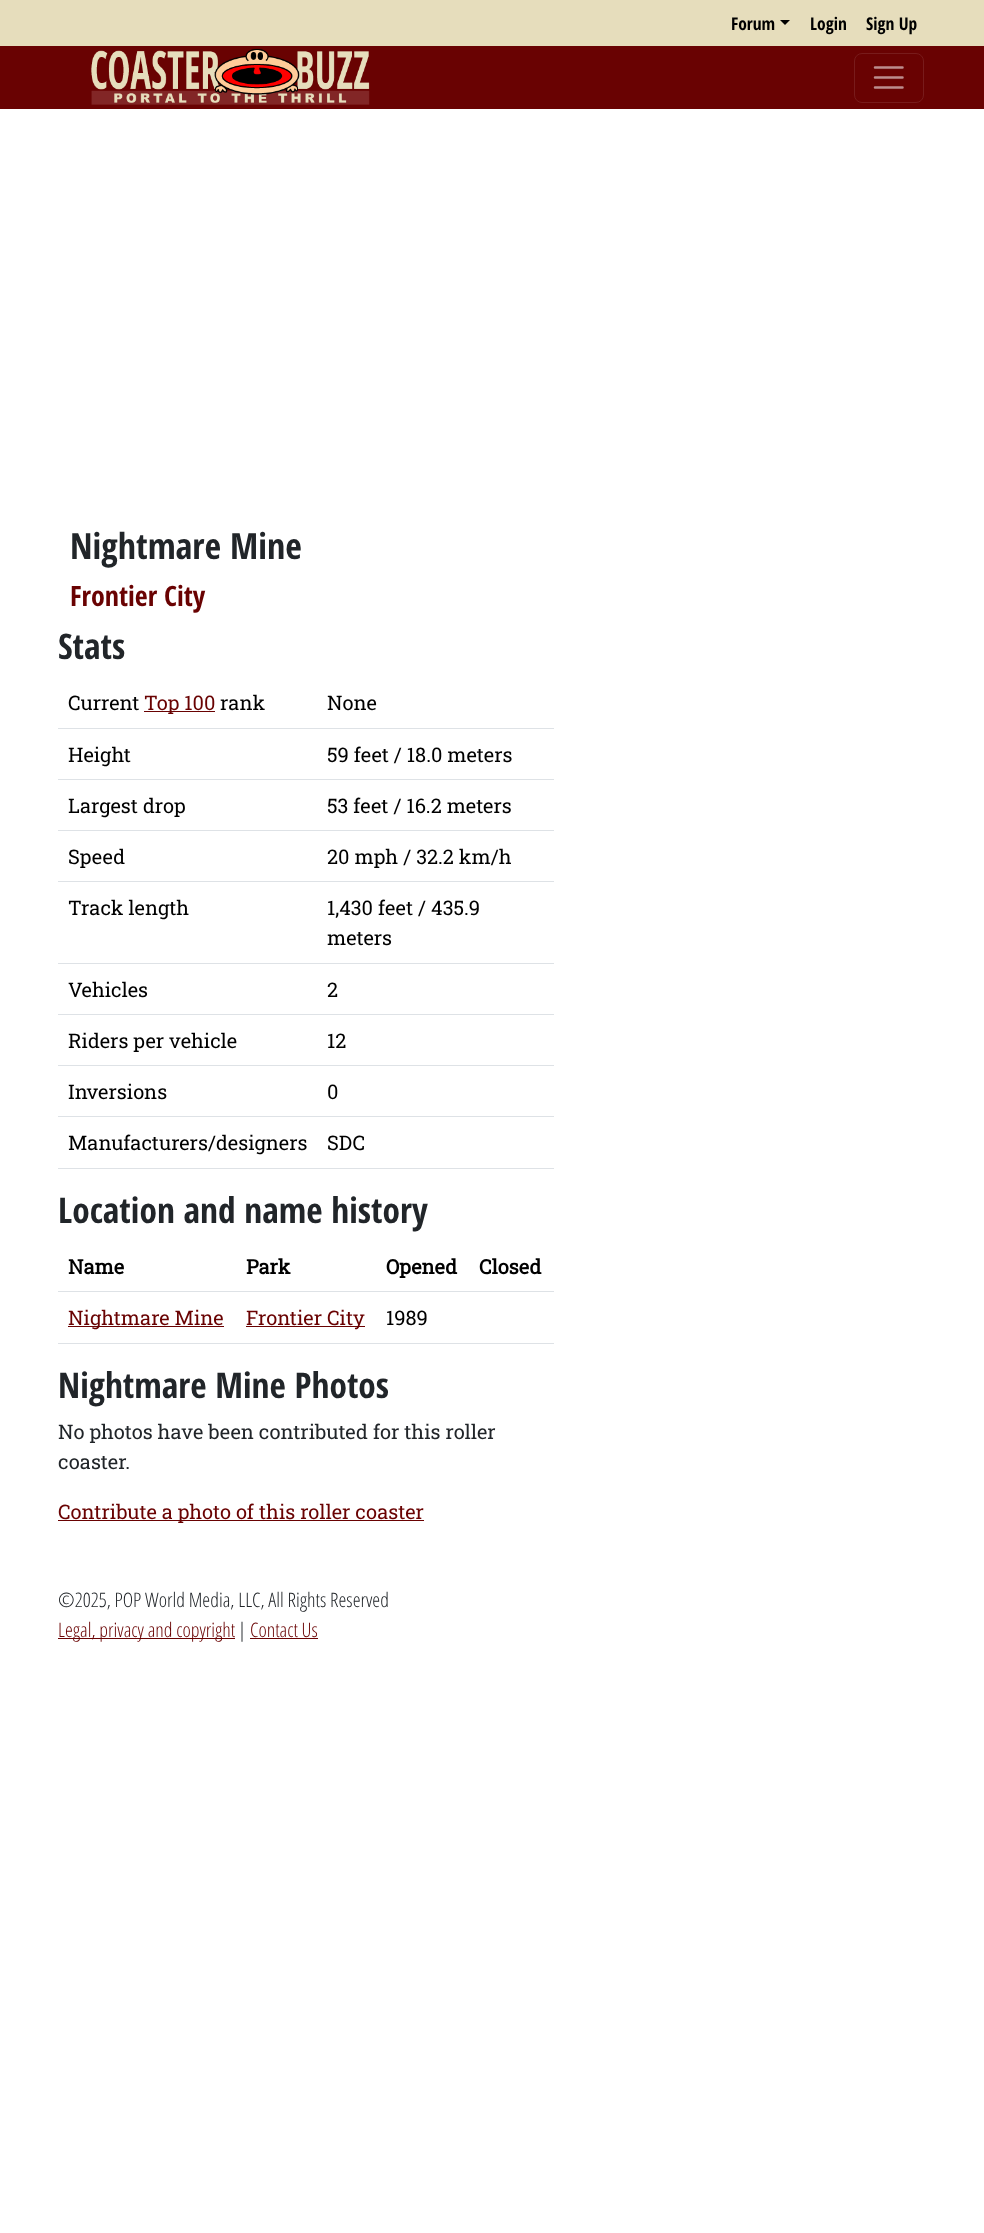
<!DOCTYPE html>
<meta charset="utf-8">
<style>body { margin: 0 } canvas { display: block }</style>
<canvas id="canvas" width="984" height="2233"></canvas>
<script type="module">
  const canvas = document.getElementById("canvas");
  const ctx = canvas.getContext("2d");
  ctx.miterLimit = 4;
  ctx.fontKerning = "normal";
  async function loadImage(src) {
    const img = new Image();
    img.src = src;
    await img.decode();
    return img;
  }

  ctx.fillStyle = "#ffffff";
  ctx.fillRect(0, 0, 984, 2233);
  ctx.fillStyle = "#e6ddbc";
  ctx.fillRect(0, 0, 984, 46);
  ctx.font = "bold 17.5px Open Sans Condensed";
  ctx.fillStyle = "#000000";
  ctx.fillText("Forum", 731, 30);
  ctx.beginPath();
  ctx.moveTo(780, 20);
  ctx.lineTo(790, 20);
  ctx.lineTo(785, 25);
  ctx.closePath();
  ctx.fill();
  ctx.fillText("Login", 810, 30);
  ctx.fillText("Sign Up", 866, 30);
  ctx.fillStyle = "#690202";
  ctx.fillRect(0, 46, 984, 63);
  ctx.drawImage(await loadImage("img1.png"), 91, 48, 279, 57);
  ctx.beginPath();
  ctx.roundRect(854.5, 53.5, 69, 49, 7.5);
  ctx.strokeStyle = "#781b1b";
  ctx.stroke();
  ctx.beginPath();
  ctx.moveTo(875, 67.5);
  ctx.lineTo(902.5, 67.5);
  ctx.moveTo(875, 77.5);
  ctx.lineTo(902.5, 77.5);
  ctx.moveTo(875, 87.5);
  ctx.lineTo(902.5, 87.5);
  ctx.strokeStyle = "#bc8d8d";
  ctx.lineWidth = 2.5;
  ctx.lineCap = "round";
  ctx.stroke();
  ctx.font = "bold 36px Open Sans Condensed";
  ctx.fillStyle = "#212529";
  ctx.fillText("Nightmare Mine", 70, 559);
  ctx.font = "bold 28px Open Sans Condensed";
  ctx.fillStyle = "#690202";
  ctx.fillText("Frontier City", 70, 606);
  ctx.font = "bold 35.4px Open Sans Condensed";
  ctx.fillStyle = "#212529";
  ctx.fillText("Stats", 58, 659);
  ctx.font = "20px Roboto Slab";
  ctx.fillStyle = "#000000";
  ctx.fillText("Current", 68, 710);
  ctx.fillStyle = "#690202";
  ctx.fillRect(144, 711, 71, 1);
  ctx.fillText("Top 100", 144, 710);
  ctx.fillStyle = "#000000";
  ctx.fillText("rank", 220, 710);
  ctx.fillStyle = "#dee2e6";
  ctx.fillRect(58, 728, 496, 1);
  ctx.fillStyle = "#000000";
  ctx.fillText("None", 327, 710);
  ctx.fillText("Height", 68, 762);
  ctx.fillStyle = "#dee2e6";
  ctx.fillRect(58, 779, 496, 1);
  ctx.fillStyle = "#000000";
  ctx.fillText("59 feet / 18.0 meters", 327, 762);
  ctx.fillText("Largest drop", 68, 813);
  ctx.fillStyle = "#dee2e6";
  ctx.fillRect(58, 830, 496, 1);
  ctx.fillStyle = "#000000";
  ctx.fillText("53 feet / 16.2 meters", 327, 813);
  ctx.fillText("Speed", 68, 864);
  ctx.fillStyle = "#dee2e6";
  ctx.fillRect(58, 881, 496, 1);
  ctx.fillStyle = "#000000";
  ctx.fillText("20 mph / 32.2 km/h", 327, 864);
  ctx.fillText("Track length", 68, 915);
  ctx.fillStyle = "#dee2e6";
  ctx.fillRect(58, 963, 496, 1);
  ctx.fillStyle = "#000000";
  ctx.fillText("1,430 feet / 435.9", 327, 915);
  ctx.fillText("meters", 327, 945);
  ctx.fillText("Vehicles", 68, 997);
  ctx.fillStyle = "#dee2e6";
  ctx.fillRect(58, 1014, 496, 1);
  ctx.fillStyle = "#000000";
  ctx.fillText("2", 327, 997);
  ctx.fillText("Riders per vehicle", 68, 1048);
  ctx.fillStyle = "#dee2e6";
  ctx.fillRect(58, 1065, 496, 1);
  ctx.fillStyle = "#000000";
  ctx.fillText("12", 327, 1048);
  ctx.fillText("Inversions", 68, 1099);
  ctx.fillStyle = "#dee2e6";
  ctx.fillRect(58, 1116, 496, 1);
  ctx.fillStyle = "#000000";
  ctx.fillText("0", 327, 1099);
  ctx.fillText("Manufacturers/designers", 68, 1150);
  ctx.fillStyle = "#dee2e6";
  ctx.fillRect(58, 1168, 496, 1);
  ctx.fillStyle = "#000000";
  ctx.fillText("SDC", 327, 1150);
  ctx.font = "bold 35.4px Open Sans Condensed";
  ctx.fillStyle = "#212529";
  ctx.fillText("Location and name history", 58, 1223);
  ctx.font = "bold 20px Roboto Slab";
  ctx.fillStyle = "#000000";
  ctx.fillText("Name", 68, 1274);
  ctx.fillText("Park", 246, 1274);
  ctx.fillText("Opened", 386, 1274);
  ctx.fillStyle = "#dee2e6";
  ctx.fillRect(58, 1291, 496, 1);
  ctx.fillStyle = "#000000";
  ctx.fillText("Closed", 479, 1274);
  ctx.fillStyle = "#690202";
  ctx.fillRect(68, 1326, 156, 1);
  ctx.font = "20px Roboto Slab";
  ctx.fillText("Nightmare Mine", 68, 1325);
  ctx.fillRect(246, 1326, 119, 1);
  ctx.fillText("Frontier City", 246, 1325);
  ctx.fillStyle = "#000000";
  ctx.fillText("1989", 386, 1325);
  ctx.fillStyle = "#dee2e6";
  ctx.fillRect(58, 1343, 496, 1);
  ctx.font = "bold 35.4px Open Sans Condensed";
  ctx.fillStyle = "#212529";
  ctx.fillText("Nightmare Mine Photos", 58, 1398);
  ctx.font = "20px Roboto Slab";
  ctx.fillText("No photos have been contributed for this roller", 58, 1439);
  ctx.fillText("coaster.", 58, 1469);
  ctx.fillStyle = "#690202";
  ctx.fillRect(58, 1520, 366, 1);
  ctx.fillText("Contribute a photo of this roller coaster", 58, 1519);
  ctx.font = "300 20px Open Sans Condensed";
  ctx.fillStyle = "#212529";
  ctx.fillText("©2025, POP World Media, LLC, All Rights Reserved", 58, 1607);
  ctx.fillStyle = "#690202";
  ctx.fillRect(58, 1638, 177, 1);
  ctx.fillText("Legal, privacy and copyright", 58, 1637);
  ctx.fillStyle = "#212529";
  ctx.fillText("|", 238, 1637);
  ctx.fillStyle = "#690202";
  ctx.fillText("Contact Us", 250, 1637);
  ctx.fillRect(250, 1638, 68, 1);
</script>
